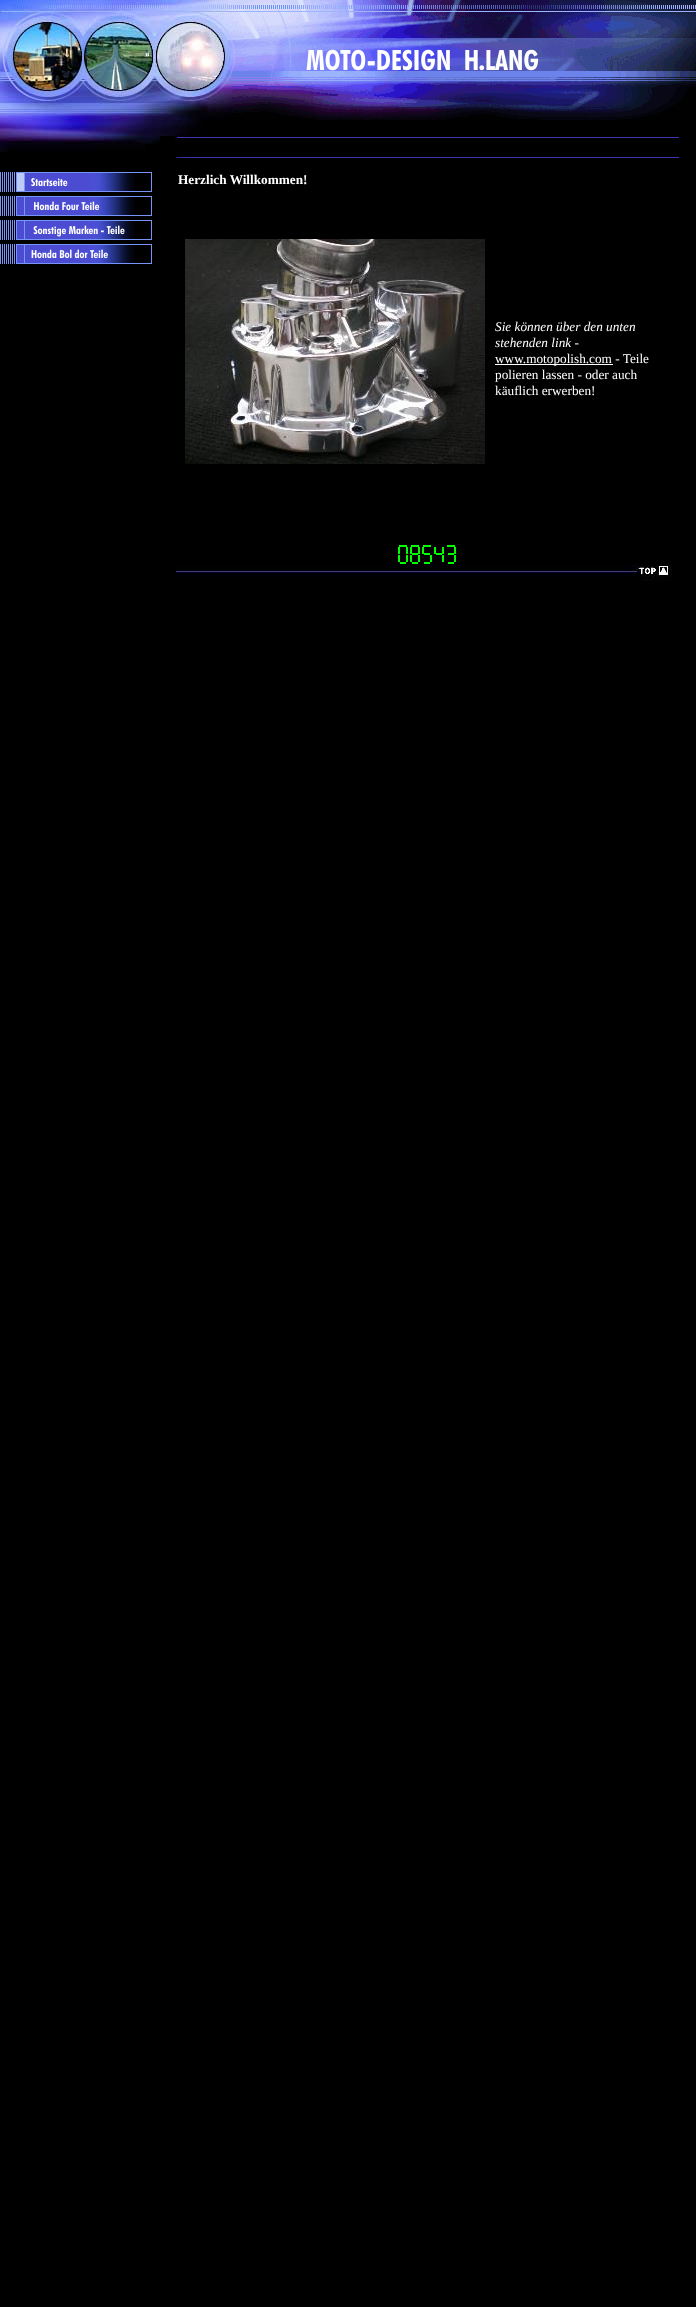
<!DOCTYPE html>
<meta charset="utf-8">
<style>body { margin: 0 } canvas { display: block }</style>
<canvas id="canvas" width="696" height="2307"></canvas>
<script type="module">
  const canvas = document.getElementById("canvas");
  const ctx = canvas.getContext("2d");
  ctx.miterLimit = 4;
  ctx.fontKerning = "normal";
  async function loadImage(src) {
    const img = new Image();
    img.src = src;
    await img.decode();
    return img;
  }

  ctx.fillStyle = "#ffffff";
  ctx.fillRect(0, 0, 696, 2307);
  ctx.drawImage(await loadImage("img1.png"), 0, 120, 696, 2187);
  ctx.drawImage(await loadImage("img2.png"), 0, 0, 232, 120);
  ctx.drawImage(await loadImage("img3.png"), 232, 0, 464, 120);
  ctx.drawImage(await loadImage("img4.png"), 0, 120, 160, 24);
  ctx.drawImage(await loadImage("img5.png"), 0, 144, 145, 8);
  ctx.drawImage(await loadImage("img6.png"), 0, 172, 152, 20);
  ctx.drawImage(await loadImage("img7.png"), 0, 196, 152, 20);
  ctx.drawImage(await loadImage("img8.png"), 0, 220, 152, 20);
  ctx.drawImage(await loadImage("img9.png"), 0, 244, 152, 20);
  ctx.drawImage(await loadImage("img10.png"), 160, 120, 43, 16);
  ctx.drawImage(await loadImage("img11.png"), 175, 136, 504, 22);
  ctx.font = "bold 13.25px Liberation Serif";
  ctx.fillText("Herzlich Willkommen!", 178, 184);
  ctx.drawImage(await loadImage("img12.png"), 185, 239, 300, 225);
  ctx.font = "italic 13.25px Liberation Serif";
  ctx.fillText("Sie können über den unten", 495, 331);
  ctx.fillText("stehenden link -", 495, 347);
  ctx.fillRect(495, 364, 118, 1);
  ctx.font = "13.25px Liberation Serif";
  ctx.fillText("www.motopolish.com - Teile", 495, 363);
  ctx.fillText("polieren lassen - oder auch", 495, 379);
  ctx.fillText("käuflich erwerben!", 495, 395);
  ctx.drawImage(await loadImage("img13.png"), 398, 545, 58, 19);
  ctx.drawImage(await loadImage("img14.png"), 176, 565, 496, 16);
</script>
